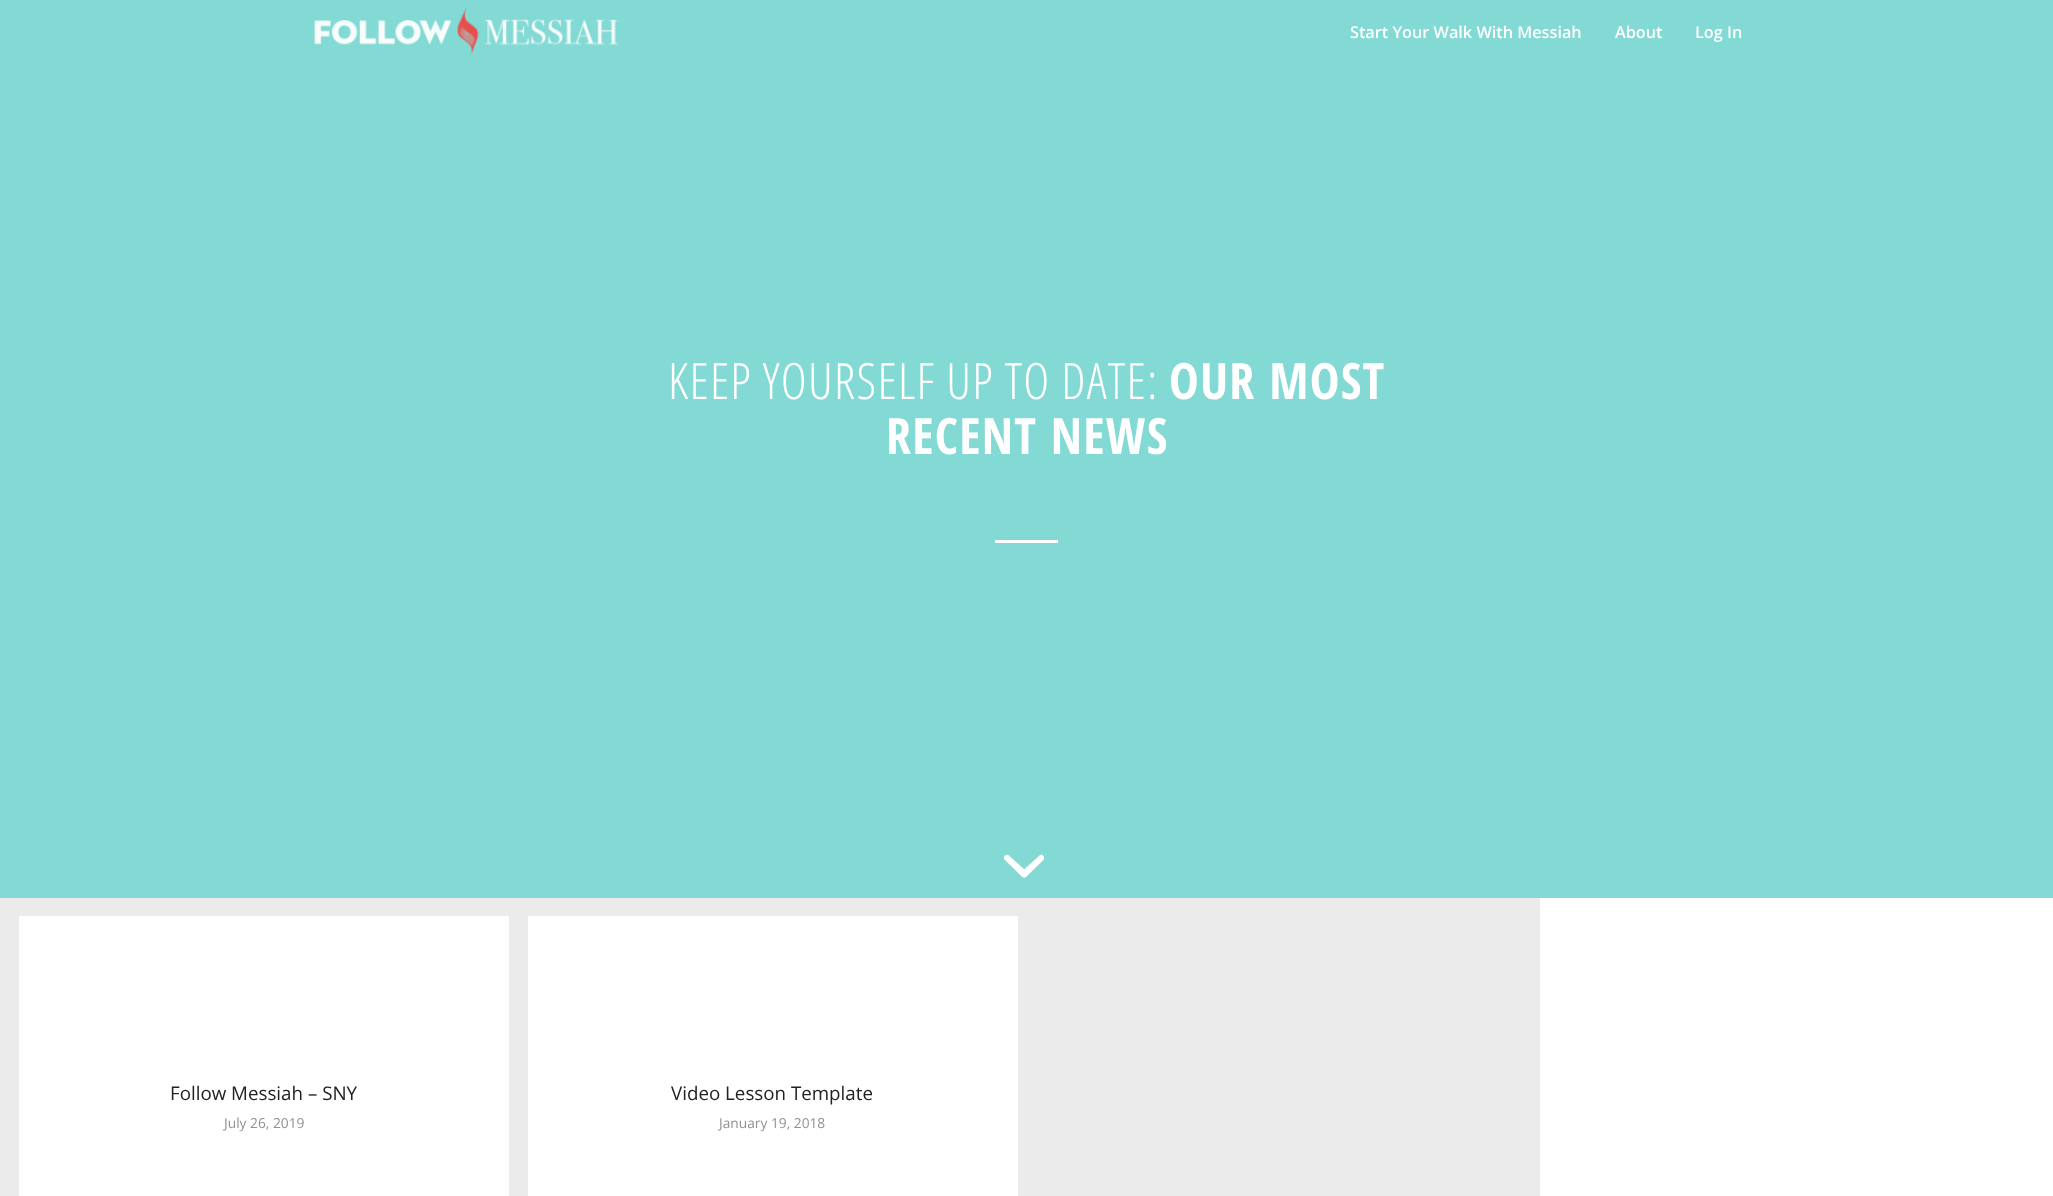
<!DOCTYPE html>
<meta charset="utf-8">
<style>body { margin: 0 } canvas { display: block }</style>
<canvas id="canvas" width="2053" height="1196"></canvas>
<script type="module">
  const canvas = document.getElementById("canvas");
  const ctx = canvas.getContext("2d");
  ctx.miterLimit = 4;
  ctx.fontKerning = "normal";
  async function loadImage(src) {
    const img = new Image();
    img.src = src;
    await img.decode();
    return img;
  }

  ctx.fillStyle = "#ffffff";
  ctx.fillRect(0, 0, 2053, 1196);
  ctx.fillStyle = "#83dad5";
  ctx.fillRect(0, 0, 2053, 898);
  ctx.drawImage(await loadImage("img1.png"), 314, 7, 304, 49);
  ctx.font = "600 16.25px Open Sans";
  ctx.fillStyle = "#ffffff";
  ctx.fillText("Start Your Walk With Messiah", 1350, 38);
  ctx.fillText("About", 1615, 38);
  ctx.fillText("Log In", 1695, 38);
  ctx.letterSpacing = "1.25px";
  ctx.font = "300 50px Open Sans Condensed";
  ctx.fillText("KEEP YOURSELF UP TO DATE:", 668, 399);
  ctx.font = "bold 50px Open Sans Condensed";
  ctx.fillText("OUR MOST", 1169, 399);
  ctx.fillText("RECENT NEWS", 886, 454);
  ctx.fillRect(995, 540, 63, 3);
  ctx.drawImage(await loadImage("img2.png"), 1004, 854, 40, 24);
  ctx.fillStyle = "#ebebeb";
  ctx.fillRect(0, 898, 1540, 298);
  ctx.fillStyle = "#ffffff";
  ctx.fillRect(19, 916, 490, 280);
  ctx.letterSpacing = "0px";
  ctx.font = "18.75px Open Sans";
  ctx.fillStyle = "#222222";
  ctx.fillText("Follow Messiah – SNY", 170, 1100);
  ctx.font = "13.75px Open Sans";
  ctx.fillStyle = "#919191";
  ctx.fillText("July 26, 2019", 224, 1128);
  ctx.fillStyle = "#ffffff";
  ctx.fillRect(528, 916, 490, 280);
  ctx.font = "18.75px Open Sans";
  ctx.fillStyle = "#222222";
  ctx.fillText("Video Lesson Template", 671, 1100);
  ctx.font = "13.75px Open Sans";
  ctx.fillStyle = "#919191";
  ctx.fillText("January 19, 2018", 719, 1128);
</script>
